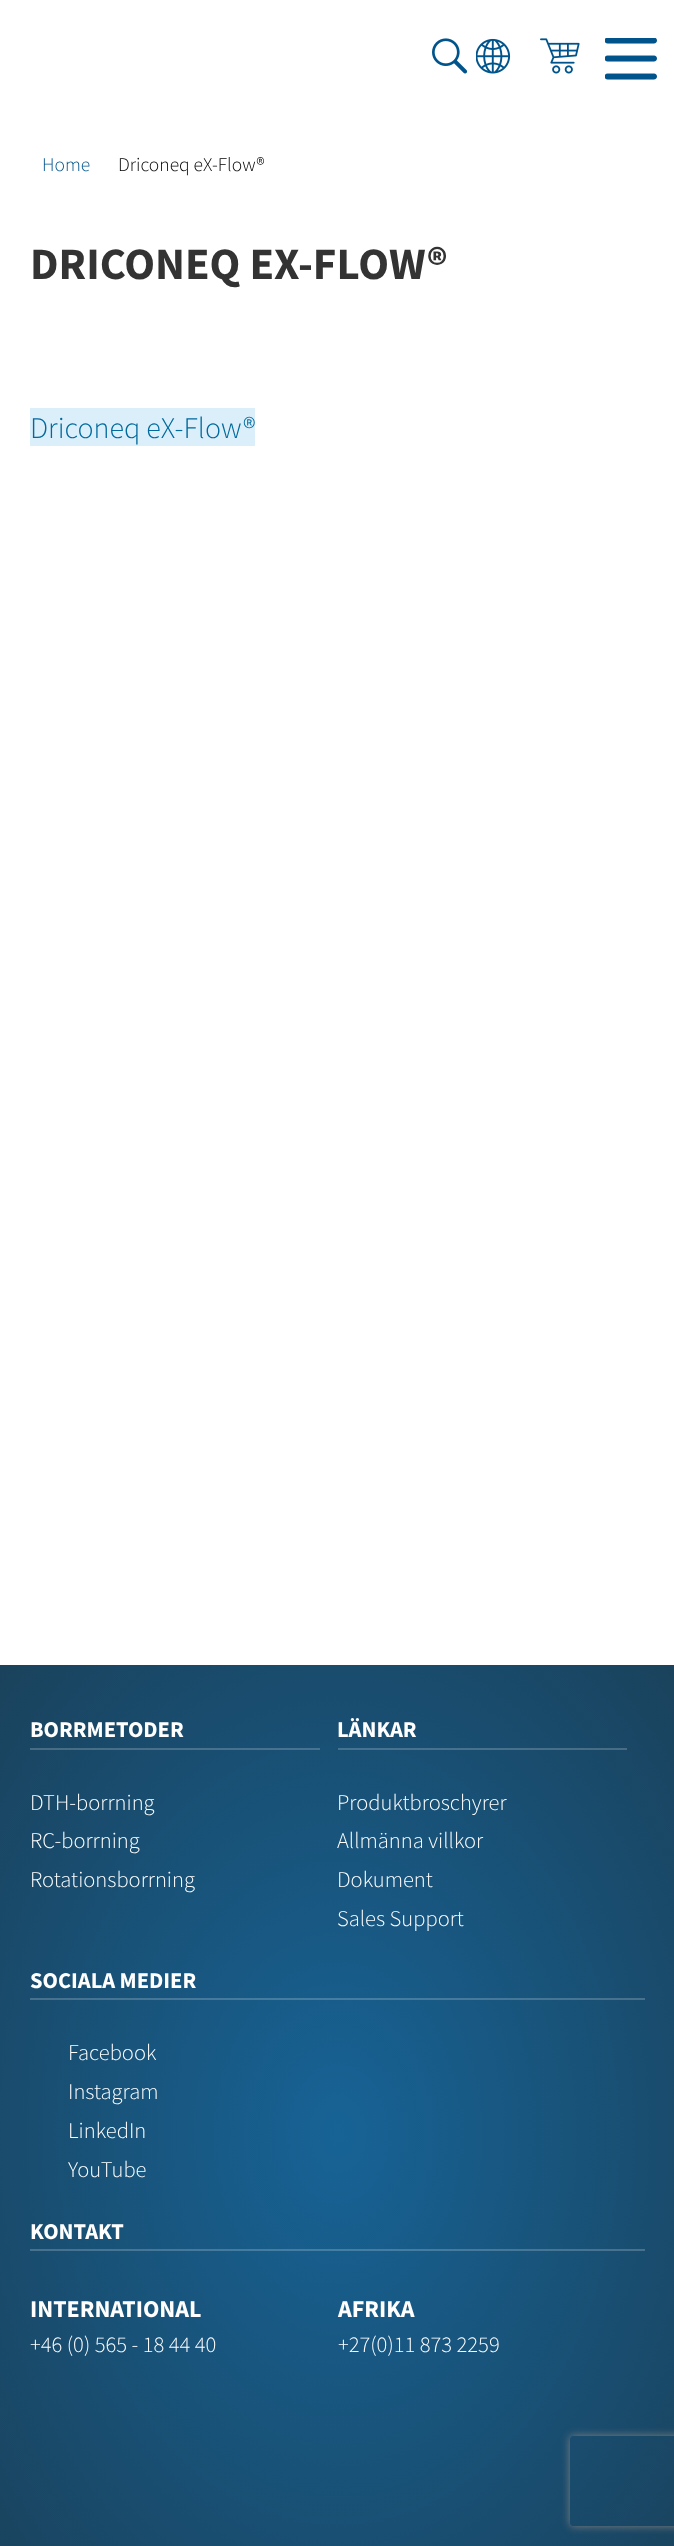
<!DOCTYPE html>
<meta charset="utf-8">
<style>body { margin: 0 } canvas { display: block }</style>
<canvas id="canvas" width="674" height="2546"></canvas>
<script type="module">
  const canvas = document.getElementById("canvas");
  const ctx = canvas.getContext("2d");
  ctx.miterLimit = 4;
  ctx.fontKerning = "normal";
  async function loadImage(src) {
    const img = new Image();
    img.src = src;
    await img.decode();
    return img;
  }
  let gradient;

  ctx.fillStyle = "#ffffff";
  ctx.fillRect(0, 0, 674, 2546);
  ctx.drawImage(await loadImage("img1.png"), 432, 38, 36, 36);
  ctx.drawImage(await loadImage("img2.png"), 476, 38, 35, 36);
  ctx.drawImage(await loadImage("img3.png"), 540, 38, 40, 36);
  ctx.drawImage(await loadImage("img4.png"), 605, 38, 52, 42);
  ctx.font = "300 19.5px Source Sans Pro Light";
  ctx.fillStyle = "#00548b";
  ctx.fillText("Home", 42, 171);
  ctx.fillStyle = "#000000";
  ctx.fillText("Driconeq eX-Flow®", 118, 171);
  ctx.font = "bold 45px Source Sans Pro";
  ctx.fillStyle = "#333333";
  ctx.fillText("DRICONEQ EX-FLOW®", 30, 279);
  ctx.fillStyle = "#dbeffb";
  ctx.fillRect(30, 408, 225, 38);
  ctx.font = "300 30px Source Sans Pro Light";
  ctx.fillStyle = "#00699d";
  ctx.fillText("Driconeq eX-Flow®", 30, 438);
  gradient = ctx.createRadialGradient(338, 1535.32, 0, 338, 1535.32, 477);
  gradient.addColorStop(0, "#176396");
  gradient.addColorStop(1, "#1a425c");
  ctx.fillStyle = gradient;
  ctx.beginPath();
  ctx.rect(0, 1665, 674, 881);
  ctx.save();
  ctx.clip();
  ctx.scale(1, 663 / 477);
  ctx.fillRect(0, 0, 674, 1832);
  ctx.restore();
  gradient = ctx.createRadialGradient(338, 1535.32, 0, 338, 1535.32, 477);
  gradient.addColorStop(0, "#4582ab");
  gradient.addColorStop(1, "#48687d");
  ctx.fillStyle = gradient;
  ctx.beginPath();
  ctx.rect(30, 2249, 615, 2);
  ctx.save();
  ctx.clip();
  ctx.scale(1, 663 / 477);
  ctx.fillRect(0, 0, 674, 1832);
  ctx.restore();
  ctx.beginPath();
  ctx.rect(30, 1998, 615, 2);
  ctx.save();
  ctx.clip();
  ctx.scale(1, 663 / 477);
  ctx.fillRect(0, 0, 674, 1832);
  ctx.restore();
  ctx.beginPath();
  ctx.rect(338, 1748, 289, 2);
  ctx.save();
  ctx.clip();
  ctx.scale(1, 663 / 477);
  ctx.fillRect(0, 0, 674, 1832);
  ctx.restore();
  ctx.beginPath();
  ctx.rect(30, 1748, 290, 2);
  ctx.save();
  ctx.clip();
  ctx.scale(1, 663 / 477);
  ctx.fillRect(0, 0, 674, 1832);
  ctx.restore();
  ctx.font = "bold 22.5px Source Sans Pro";
  ctx.fillStyle = "#ffffff";
  ctx.fillText("BORRMETODER", 30, 1737);
  ctx.font = "300 22.5px Source Sans Pro Light";
  ctx.fillText("DTH-borrning", 30, 1810);
  ctx.fillText("RC-borrning", 30, 1848);
  ctx.fillText("Rotationsborrning", 30, 1887);
  ctx.font = "bold 22.5px Source Sans Pro";
  ctx.fillText("LÄNKAR", 337, 1737);
  ctx.font = "300 22.5px Source Sans Pro Light";
  ctx.fillText("Produktbroschyrer", 337, 1810);
  ctx.fillText("Allmänna villkor", 337, 1848);
  ctx.fillText("Dokument", 337, 1887);
  ctx.fillText("Sales Support", 337, 1926);
  ctx.font = "bold 22.5px Source Sans Pro";
  ctx.fillText("SOCIALA MEDIER", 30, 1988);
  ctx.font = "300 22.5px Source Sans Pro Light";
  ctx.fillText("Facebook", 68, 2060);
  ctx.fillText("Instagram", 68, 2099);
  ctx.fillText("LinkedIn", 68, 2138);
  ctx.fillText("YouTube", 68, 2177);
  ctx.font = "bold 22.5px Source Sans Pro";
  ctx.fillText("KONTAKT", 30, 2239);
  ctx.font = "bold 24px Source Sans Pro";
  ctx.fillText("INTERNATIONAL", 30, 2317);
  ctx.font = "300 22.5px Source Sans Pro Light";
  ctx.fillText("+46 (0) 565 - 18 44 40", 30, 2352);
  ctx.font = "bold 24px Source Sans Pro";
  ctx.fillText("AFRIKA", 338, 2317);
  ctx.font = "300 22.5px Source Sans Pro Light";
  ctx.fillText("+27(0)11 873 2259", 338, 2352);
  ctx.save();
  ctx.beginPath();
  ctx.moveTo(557, 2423);
  ctx.lineTo(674, 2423);
  ctx.lineTo(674, 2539);
  ctx.lineTo(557, 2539);
  ctx.closePath();
  ctx.moveTo(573, 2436);
  ctx.lineTo(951, 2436);
  ctx.bezierCurveTo(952.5, 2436, 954, 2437.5, 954, 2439);
  ctx.lineTo(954, 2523);
  ctx.bezierCurveTo(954, 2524.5, 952.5, 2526, 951, 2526);
  ctx.lineTo(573, 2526);
  ctx.bezierCurveTo(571.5, 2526, 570, 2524.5, 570, 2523);
  ctx.lineTo(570, 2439);
  ctx.bezierCurveTo(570, 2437.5, 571.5, 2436, 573, 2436);
  ctx.closePath();
  ctx.clip("evenodd");
  ctx.fillStyle = "#808080";
  ctx.filter = "blur(4px)";
  ctx.beginPath();
  ctx.roundRect(570, 2436, 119, 90, 3);
  ctx.fill();
  ctx.filter = "none";
  ctx.restore();
</script>
